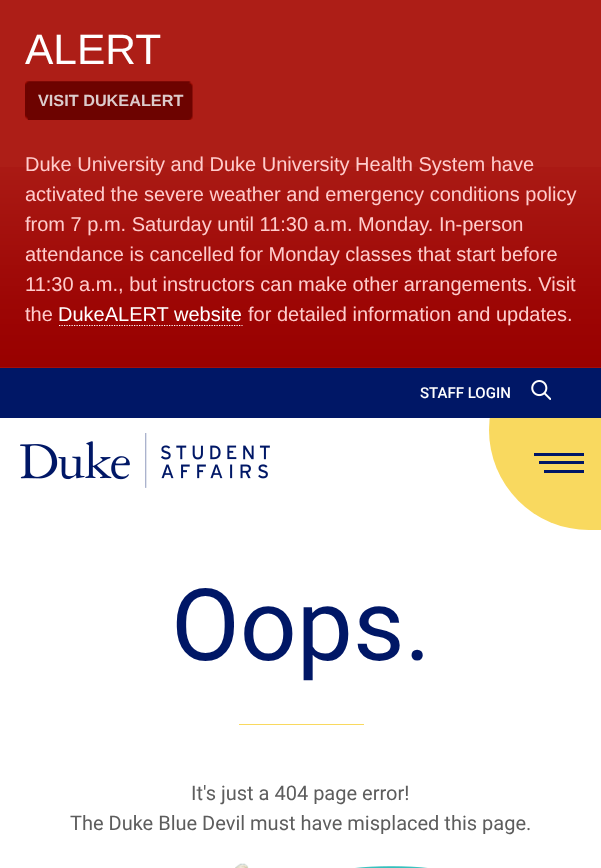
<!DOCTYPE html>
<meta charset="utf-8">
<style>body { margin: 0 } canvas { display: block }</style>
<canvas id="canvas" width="601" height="868"></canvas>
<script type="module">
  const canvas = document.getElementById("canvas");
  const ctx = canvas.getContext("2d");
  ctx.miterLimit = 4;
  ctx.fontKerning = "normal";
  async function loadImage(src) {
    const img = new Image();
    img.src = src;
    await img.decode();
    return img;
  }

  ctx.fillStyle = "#ffffff";
  ctx.fillRect(0, 0, 601, 868);
  ctx.fillStyle = "#f9d95f";
  ctx.beginPath();
  ctx.roundRect(489, 330, 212, 200, 100);
  ctx.fill();
  ctx.fillStyle = "#ad1e17";
  ctx.fillRect(0, 0, 601, 368);
  ctx.drawImage(await loadImage("img1.png"), 0, 167, 601, 201);
  ctx.font = "42.5px Liberation Sans";
  ctx.fillStyle = "#ffffff";
  ctx.fillText("ALERT", 25, 64);
  ctx.drawImage(await loadImage("img2.png"), 25, 81, 166, 38);
  ctx.drawImage(await loadImage("img3.png"), 27, 82, 166, 38);
  ctx.font = "bold 16.25px Liberation Sans";
  ctx.fillStyle = "#dccbcb";
  ctx.fillText("VISIT DUKEALERT", 38, 106);
  ctx.font = "20px Liberation Sans";
  ctx.fillStyle = "#ffcccc";
  ctx.fillText("Duke University and Duke University Health System have", 25, 171);
  ctx.fillText("activated the severe weather and emergency conditions policy", 25, 201);
  ctx.fillText("from 7 p.m. Saturday until 11:30 a.m. Monday. In-person", 25, 231);
  ctx.fillText("attendance is cancelled for Monday classes that start before", 25, 261);
  ctx.fillText("11:30 a.m., but instructors can make other arrangements. Visit", 25, 291);
  ctx.fillText("the", 25, 321);
  ctx.fillStyle = "#ffffff";
  ctx.fillText("DukeALERT website", 58, 321);
  ctx.beginPath();
  ctx.moveTo(59, 325.5);
  ctx.lineTo(242.5, 325.5);
  ctx.strokeStyle = "#ffffff";
  ctx.lineWidth = 1.2;
  ctx.setLineDash([1.25, 1.25]);
  ctx.stroke();
  ctx.fillStyle = "#ffcccc";
  ctx.fillText("for detailed information and updates.", 248, 321);
  ctx.fillStyle = "#001766";
  ctx.fillRect(0, 368, 601, 50);
  ctx.font = "500 15px Roboto";
  ctx.fillStyle = "#ffffff";
  ctx.fillText("STAFF LOGIN", 420, 398);
  ctx.drawImage(await loadImage("img4.png"), 531, 380, 20, 20);
  ctx.fillStyle = "#001766";
  ctx.fillRect(534, 453, 50, 3);
  ctx.fillRect(539, 461, 45, 3);
  ctx.fillRect(544, 470, 40, 3);
  ctx.drawImage(await loadImage("img5.png"), 20, 433, 250, 55);
  ctx.font = "100px Roboto";
  ctx.fillText("Oops.", 171, 660);
  ctx.fillStyle = "#f9d95f";
  ctx.fillRect(239, 724, 125, 1);
  ctx.font = "20px Roboto";
  ctx.fillStyle = "#5d5d5d";
  ctx.fillText("It's just a 404 page error!", 191, 800);
  ctx.fillText("The Duke Blue Devil must have misplaced this page.", 70, 830);
  ctx.drawImage(await loadImage("img6.png"), 235, 863, 193, 5);
</script>
